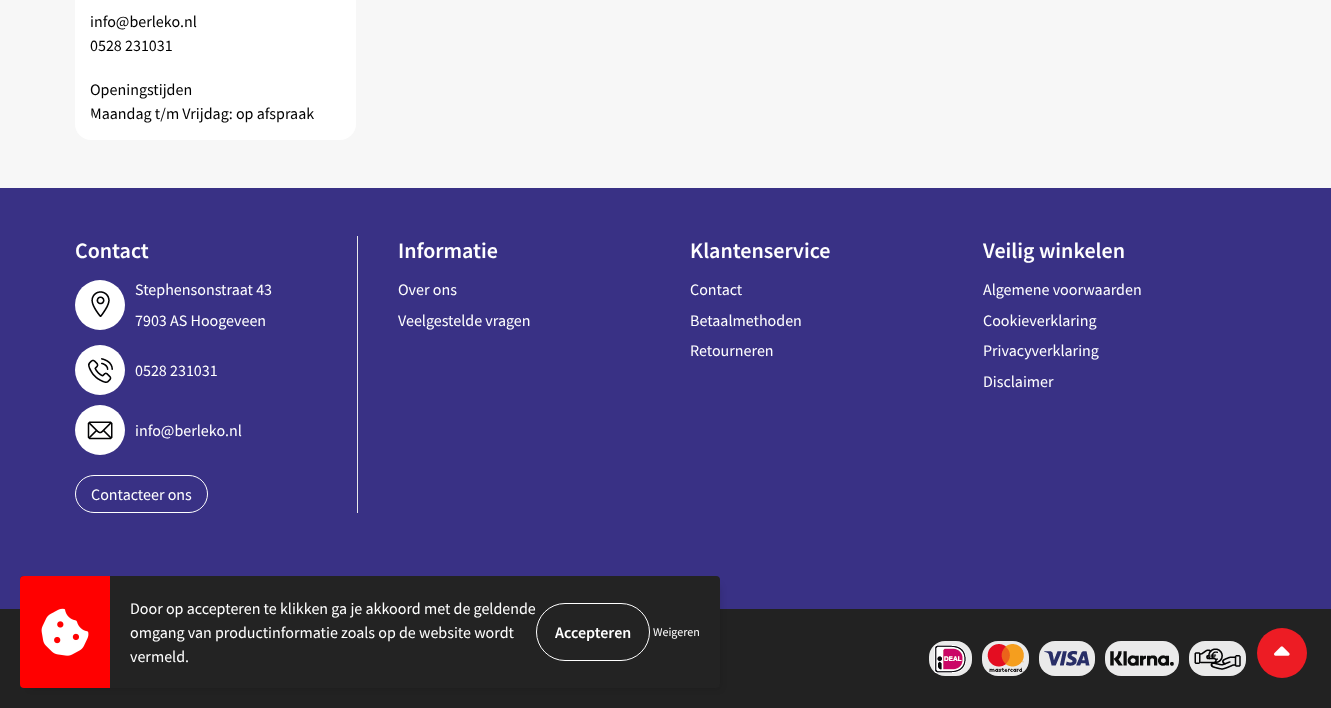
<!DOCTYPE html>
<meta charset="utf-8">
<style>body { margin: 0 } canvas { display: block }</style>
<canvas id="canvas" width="1331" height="708"></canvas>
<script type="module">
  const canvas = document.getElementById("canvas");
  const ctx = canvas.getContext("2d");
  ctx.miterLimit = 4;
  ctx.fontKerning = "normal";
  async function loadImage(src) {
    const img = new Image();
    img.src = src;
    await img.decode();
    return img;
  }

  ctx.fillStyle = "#f7f7f7";
  ctx.fillRect(0, 0, 1331, 708);
  ctx.fillStyle = "#ffffff";
  ctx.beginPath();
  ctx.roundRect(75, -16, 281, 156, 16);
  ctx.fill();
  ctx.font = "16px Source Sans Pro";
  ctx.fillStyle = "#000000";
  ctx.fillText("info@berleko.nl", 90, 27);
  ctx.fillText("0528 231031", 90, 51);
  ctx.fillText("Openingstijden", 90, 95);
  ctx.save();
  ctx.beginPath();
  ctx.roundRect(90, -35, 251, 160, 16);
  ctx.clip();
  ctx.fillText("Maandag t/m Vrijdag: op afspraak", 90, 119);
  ctx.restore();
  ctx.fillStyle = "#393185";
  ctx.fillRect(0, 188, 1331, 421);
  ctx.fillStyle = "#eaeaea";
  ctx.fillRect(357, 236, 1, 277);
  ctx.font = "600 22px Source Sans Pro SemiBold";
  ctx.fillStyle = "#ffffff";
  ctx.fillText("Contact", 75, 258);
  ctx.beginPath();
  ctx.arc(100, 305, 25, 0, Math.PI * 2);
  ctx.fill();
  ctx.drawImage(await loadImage("img1.png"), 91, 291, 19, 26);
  ctx.font = "16px Source Sans Pro";
  ctx.fillText("Stephensonstraat 43", 135, 295);
  ctx.fillText("7903 AS Hoogeveen", 135, 326);
  ctx.beginPath();
  ctx.arc(100, 370, 25, 0, Math.PI * 2);
  ctx.fill();
  ctx.drawImage(await loadImage("img2.png"), 88, 358, 25, 25);
  ctx.fillText("0528 231031", 135, 376);
  ctx.beginPath();
  ctx.arc(100, 430, 25, 0, Math.PI * 2);
  ctx.fill();
  ctx.drawImage(await loadImage("img3.png"), 87, 421, 26, 19);
  ctx.fillText("info@berleko.nl", 135, 436);
  ctx.beginPath();
  ctx.roundRect(75.5, 475.5, 132, 37, 18.5);
  ctx.strokeStyle = "#ffffff";
  ctx.stroke();
  ctx.fillText("Contacteer ons", 91, 500);
  ctx.font = "600 22px Source Sans Pro SemiBold";
  ctx.fillText("Informatie", 398, 258);
  ctx.font = "16px Source Sans Pro";
  ctx.fillText("Over ons", 398, 295);
  ctx.fillText("Veelgestelde vragen", 398, 326);
  ctx.font = "600 22px Source Sans Pro SemiBold";
  ctx.fillText("Klantenservice", 690, 258);
  ctx.font = "16px Source Sans Pro";
  ctx.fillText("Contact", 690, 295);
  ctx.fillText("Betaalmethoden", 690, 326);
  ctx.fillText("Retourneren", 690, 356);
  ctx.font = "600 22px Source Sans Pro SemiBold";
  ctx.fillText("Veilig winkelen", 983, 258);
  ctx.font = "16px Source Sans Pro";
  ctx.fillText("Algemene voorwaarden", 983, 295);
  ctx.fillText("Cookieverklaring", 983, 326);
  ctx.fillText("Privacyverklaring", 983, 356);
  ctx.fillText("Disclaimer", 983, 387);
  ctx.fillStyle = "#222222";
  ctx.fillRect(0, 609, 1331, 99);
  ctx.fillStyle = "#eaeaea";
  ctx.beginPath();
  ctx.roundRect(929, 641, 43, 35, 16);
  ctx.fill();
  ctx.drawImage(await loadImage("img4.png"), 934, 645, 33, 28);
  ctx.beginPath();
  ctx.roundRect(982, 641, 47, 35, 16);
  ctx.fill();
  ctx.drawImage(await loadImage("img5.png"), 987, 644, 37, 29);
  ctx.beginPath();
  ctx.roundRect(1039, 641, 56, 35, 16);
  ctx.fill();
  ctx.drawImage(await loadImage("img6.png"), 1044, 651, 46, 15);
  ctx.beginPath();
  ctx.roundRect(1105, 641, 74, 35, 16);
  ctx.fill();
  ctx.drawImage(await loadImage("img7.png"), 1110, 651, 64, 15);
  ctx.beginPath();
  ctx.roundRect(1189, 641, 57, 35, 16);
  ctx.fill();
  ctx.drawImage(await loadImage("img8.png"), 1194, 648, 47, 22);
  ctx.fillStyle = "#ed1c24";
  ctx.beginPath();
  ctx.arc(1282, 653, 25, 0, Math.PI * 2);
  ctx.fill();
  ctx.drawImage(await loadImage("img9.png"), 1274, 646, 16, 10);
  ctx.fillStyle = "rgba(0, 0, 0, 0.15)";
  ctx.filter = "blur(3.5px)";
  ctx.beginPath();
  ctx.rect(30, 586, 690, 102);
  ctx.fill();
  ctx.filter = "none";
  ctx.fillStyle = "#232323";
  ctx.beginPath();
  ctx.roundRect(20, 576, 700, 112, 4);
  ctx.fill();
  ctx.fillStyle = "#ff0000";
  ctx.beginPath();
  ctx.roundRect(20, 576, 90, 112, [4, 0, 0, 4]);
  ctx.fill();
  ctx.drawImage(await loadImage("img10.png"), 41, 608, 48, 48);
  ctx.fillStyle = "#ffffff";
  ctx.fillText("Door op accepteren te klikken ga je akkoord met de geldende", 130, 614);
  ctx.fillText("omgang van productinformatie zoals op de website wordt", 130, 638);
  ctx.beginPath();
  ctx.roundRect(536.5, 603.5, 113, 57, 28.5);
  ctx.stroke();
  ctx.font = "600 16px Source Sans Pro SemiBold";
  ctx.fillText("Accepteren", 555, 638);
  ctx.font = "12px Source Sans Pro";
  ctx.fillText("Weigeren", 653, 636);
  ctx.font = "16px Source Sans Pro";
  ctx.fillText("vermeld.", 130, 662);
</script>
